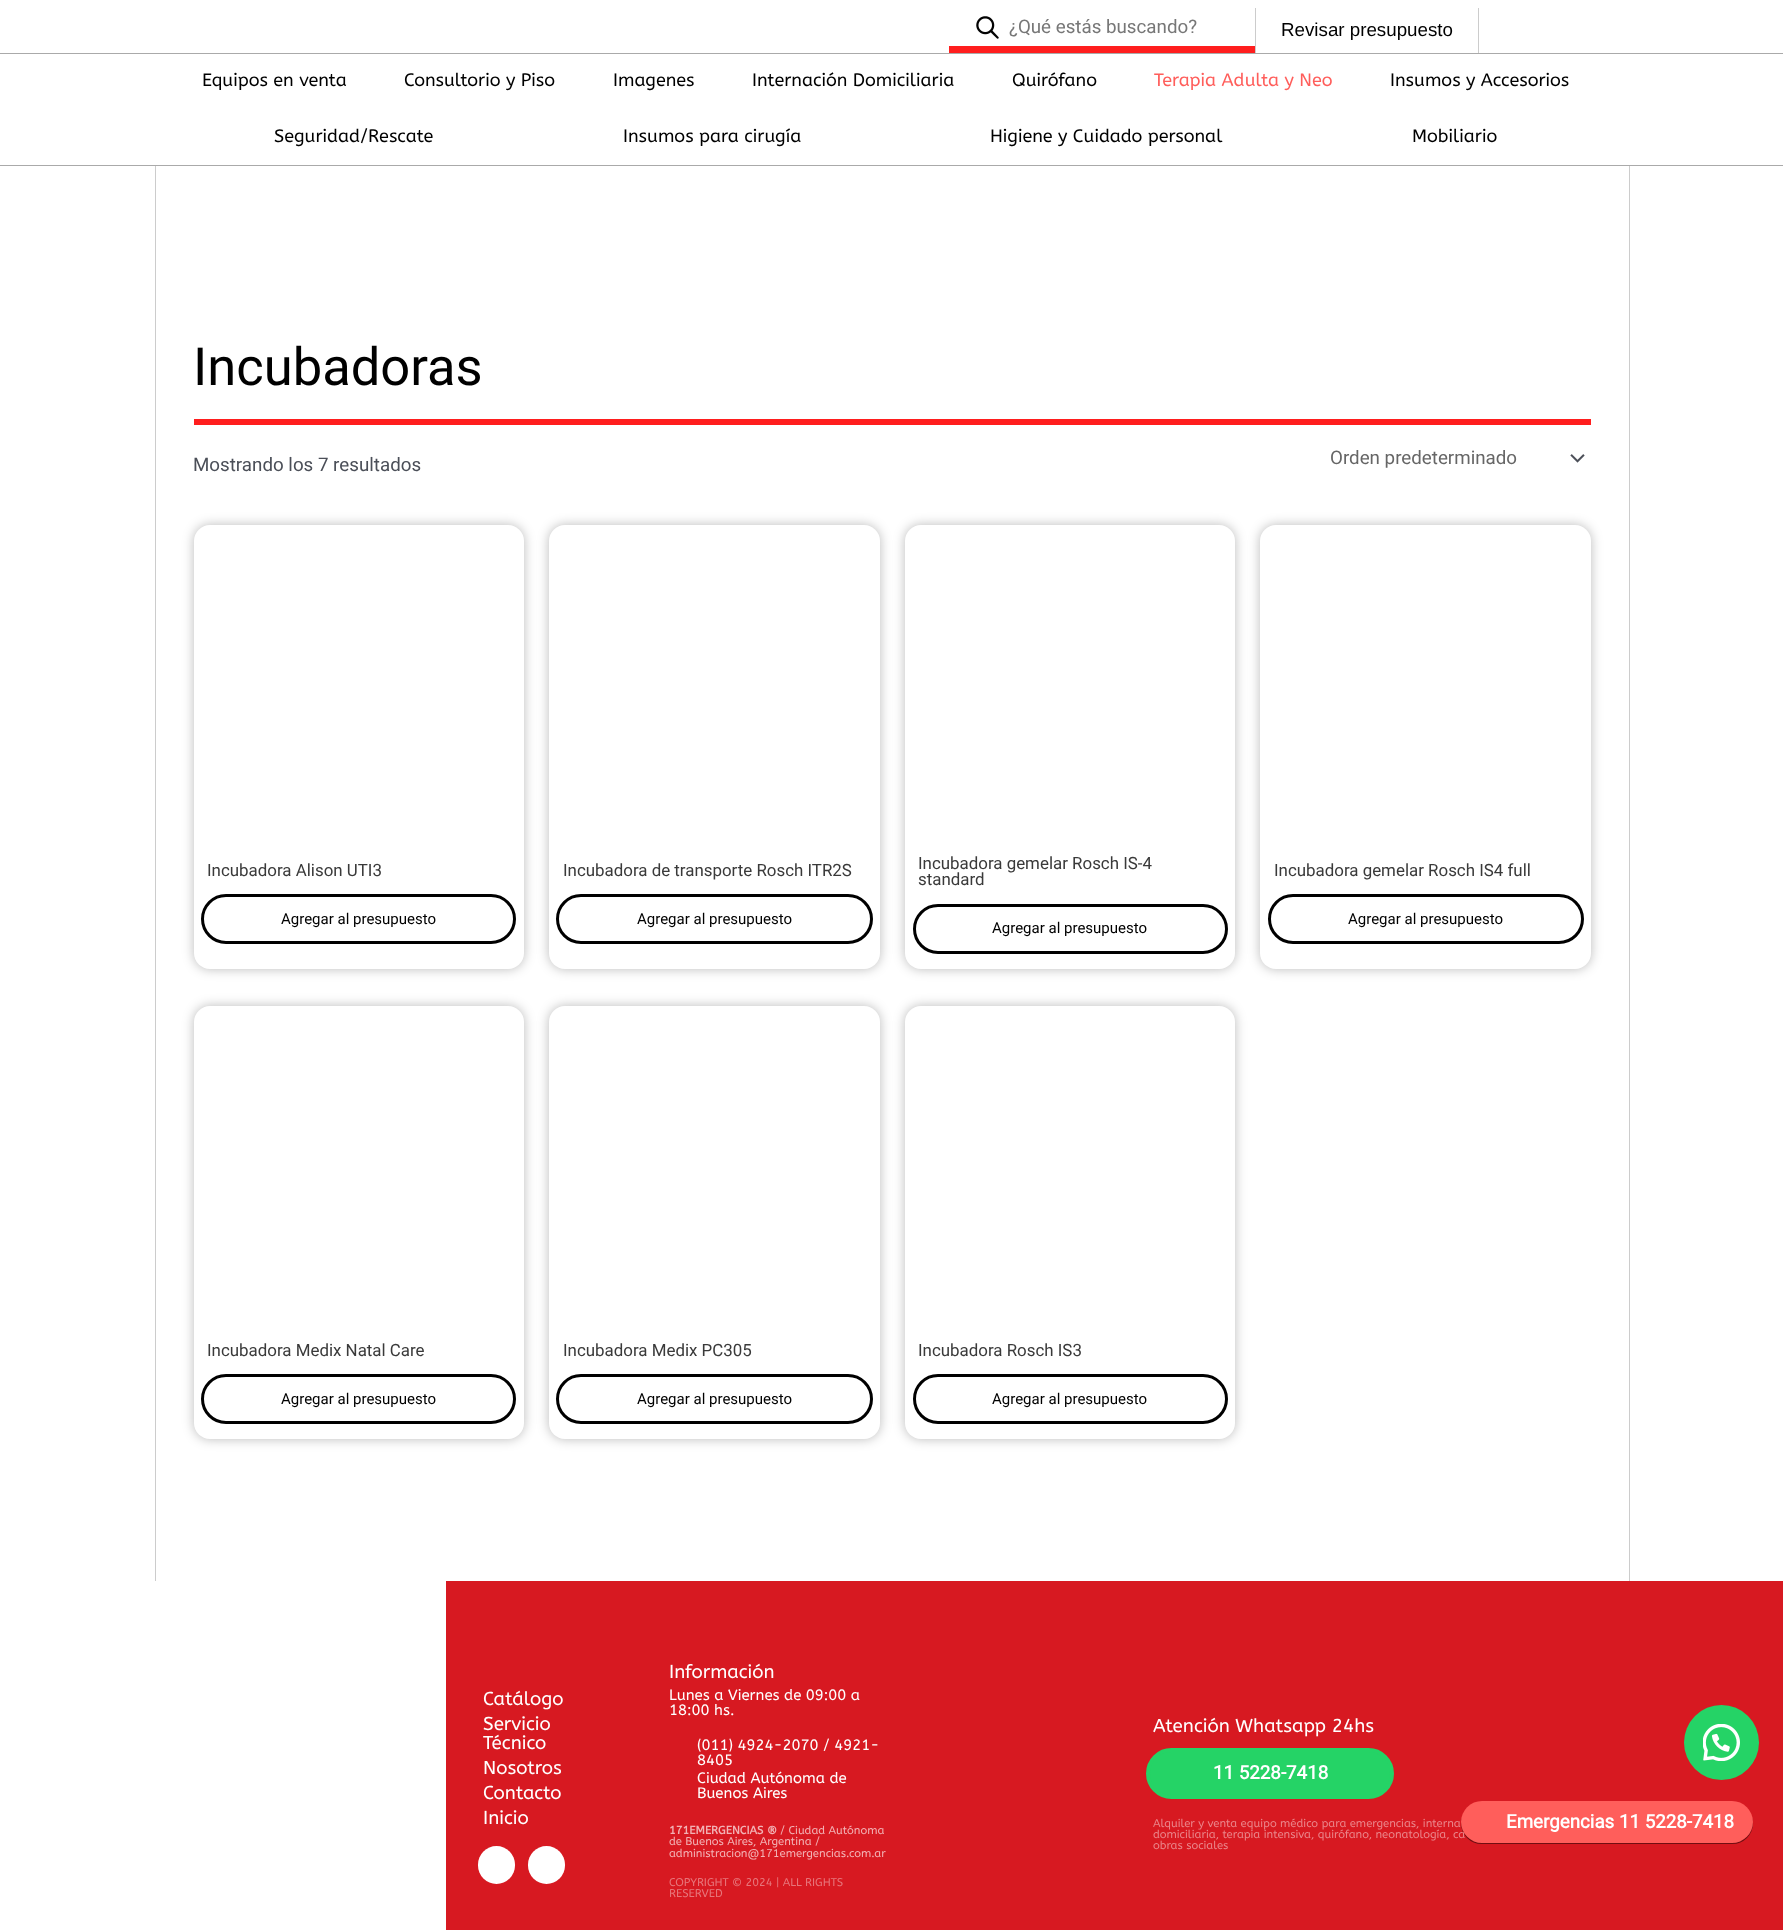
<!DOCTYPE html>
<meta charset="utf-8">
<style>body { margin: 0 } canvas { display: block }</style>
<canvas id="canvas" width="1783" height="1930"></canvas>
<script type="module">
  const canvas = document.getElementById("canvas");
  const ctx = canvas.getContext("2d");
  ctx.miterLimit = 4;
  ctx.fontKerning = "normal";
  async function loadImage(src) {
    const img = new Image();
    img.src = src;
    await img.decode();
    return img;
  }

  ctx.fillStyle = "#ffffff";
  ctx.fillRect(0, 0, 1783, 1930);
  ctx.fillStyle = "#aaaaaa";
  ctx.fillRect(0, 53, 1783, 1);
  ctx.fillStyle = "#ff1e1e";
  ctx.fillRect(949, 46, 306, 7);
  ctx.drawImage(await loadImage("img1.png"), 976, 16, 23, 23);
  ctx.font = "18.75px Roboto";
  ctx.fillStyle = "#777777";
  ctx.fillText("¿Qué estás buscando?", 1009, 33);
  ctx.fillStyle = "#cccccc";
  ctx.fillRect(1478, 8, 1, 45);
  ctx.fillRect(1255, 8, 1, 45);
  ctx.font = "18.75px Liberation Sans";
  ctx.fillStyle = "#000000";
  ctx.fillText("Revisar presupuesto", 1281, 36);
  ctx.fillStyle = "#d71921";
  ctx.fillRect(446, 1581, 1337, 349);
  ctx.fillStyle = "rgba(0, 0, 0, 0.47)";
  ctx.filter = "blur(0.5px)";
  ctx.beginPath();
  ctx.roundRect(1461, 1803, 292, 41, 20.5);
  ctx.fill();
  ctx.filter = "none";
  ctx.font = "11.25px ABeeZee";
  ctx.fillStyle = "#ea8489";
  ctx.fillText("domiciliaria, terapia intensiva, quirófano, neonatología, ca", 1153, 1838);
  ctx.fillStyle = "#ff5e5b";
  ctx.beginPath();
  ctx.roundRect(1461, 1801, 292, 42, 21);
  ctx.fill();
  ctx.font = "bold 18.75px Roboto";
  ctx.fillStyle = "#ffffff";
  ctx.fillText("Emergencias 11 5228-7418", 1506, 1828);
  ctx.fillStyle = "#aaaaaa";
  ctx.fillRect(0, 165, 1783, 1);
  ctx.font = "18px ABeeZee";
  ctx.fillStyle = "#000000";
  ctx.fillText("Equipos en venta", 202, 86);
  ctx.fillText("Consultorio y Piso", 404, 86);
  ctx.fillText("Imagenes", 613, 86);
  ctx.fillText("Internación Domiciliaria", 752, 86);
  ctx.fillText("Quirófano", 1012, 86);
  ctx.fillStyle = "#ff5e5b";
  ctx.fillText("Terapia Adulta y Neo", 1154, 86);
  ctx.fillStyle = "#000000";
  ctx.fillText("Insumos y Accesorios", 1390, 86);
  ctx.fillText("Seguridad/Rescate", 274, 142);
  ctx.fillText("Insumos para cirugía", 623, 142);
  ctx.fillText("Higiene y Cuidado personal", 990, 142);
  ctx.fillText("Mobiliario", 1412, 142);
  ctx.fillStyle = "#cccccc";
  ctx.fillRect(1629, 166, 1, 1415);
  ctx.fillRect(155, 166, 1, 1415);
  ctx.fillStyle = "#ff1e1e";
  ctx.fillRect(194, 419, 1397, 6);
  ctx.font = "52.5px Roboto";
  ctx.fillStyle = "#000000";
  ctx.fillText("Incubadoras", 193, 385);
  ctx.font = "18.75px Roboto";
  ctx.fillStyle = "#4b4f58";
  ctx.fillText("Mostrando los 7 resultados", 193, 471);
  ctx.drawImage(await loadImage("img2.png"), 1570, 454, 15, 9);
  ctx.fillStyle = "#666666";
  ctx.fillText("Orden predeterminado", 1330, 464);
  ctx.fillStyle = "rgba(0, 0, 0, 0.27)";
  ctx.filter = "blur(6px)";
  ctx.beginPath();
  ctx.roundRect(194, 525, 330, 444, 16);
  ctx.fill();
  ctx.filter = "none";
  ctx.fillStyle = "#ffffff";
  ctx.beginPath();
  ctx.roundRect(194, 525, 330, 444, 16);
  ctx.fill();
  ctx.font = "16.9px Roboto";
  ctx.fillStyle = "#3a3a3a";
  ctx.fillText("Incubadora Alison UTI3", 207, 876);
  ctx.beginPath();
  ctx.roundRect(202.5, 895.5, 312, 47, 23.5);
  ctx.strokeStyle = "#000000";
  ctx.lineWidth = 3;
  ctx.stroke();
  ctx.font = "15px Roboto";
  ctx.fillStyle = "#000000";
  ctx.fillText("Agregar al presupuesto", 281, 924);
  ctx.fillStyle = "rgba(0, 0, 0, 0.27)";
  ctx.filter = "blur(6px)";
  ctx.beginPath();
  ctx.roundRect(549, 525, 331, 444, 16);
  ctx.fill();
  ctx.filter = "none";
  ctx.fillStyle = "#ffffff";
  ctx.beginPath();
  ctx.roundRect(549, 525, 331, 444, 16);
  ctx.fill();
  ctx.font = "16.9px Roboto";
  ctx.fillStyle = "#3a3a3a";
  ctx.fillText("Incubadora de transporte Rosch ITR2S", 563, 876);
  ctx.beginPath();
  ctx.roundRect(557.5, 895.5, 314, 47, 23.5);
  ctx.stroke();
  ctx.font = "15px Roboto";
  ctx.fillStyle = "#000000";
  ctx.fillText("Agregar al presupuesto", 637, 924);
  ctx.fillStyle = "rgba(0, 0, 0, 0.27)";
  ctx.filter = "blur(6px)";
  ctx.beginPath();
  ctx.roundRect(905, 525, 330, 444, 16);
  ctx.fill();
  ctx.filter = "none";
  ctx.fillStyle = "#ffffff";
  ctx.beginPath();
  ctx.roundRect(905, 525, 330, 444, 16);
  ctx.fill();
  ctx.font = "16.9px Roboto";
  ctx.fillStyle = "#3a3a3a";
  ctx.fillText("Incubadora gemelar Rosch IS-4", 918, 869);
  ctx.fillText("standard", 918, 885);
  ctx.beginPath();
  ctx.roundRect(914.5, 905.5, 312, 47, 23.5);
  ctx.stroke();
  ctx.font = "15px Roboto";
  ctx.fillStyle = "#000000";
  ctx.fillText("Agregar al presupuesto", 992, 933);
  ctx.fillStyle = "rgba(0, 0, 0, 0.27)";
  ctx.filter = "blur(6px)";
  ctx.beginPath();
  ctx.roundRect(1260, 525, 331, 444, 16);
  ctx.fill();
  ctx.filter = "none";
  ctx.fillStyle = "#ffffff";
  ctx.beginPath();
  ctx.roundRect(1260, 525, 331, 444, 16);
  ctx.fill();
  ctx.font = "16.9px Roboto";
  ctx.fillStyle = "#3a3a3a";
  ctx.fillText("Incubadora gemelar Rosch IS4 full", 1274, 876);
  ctx.beginPath();
  ctx.roundRect(1269.5, 895.5, 313, 47, 23.5);
  ctx.stroke();
  ctx.font = "15px Roboto";
  ctx.fillStyle = "#000000";
  ctx.fillText("Agregar al presupuesto", 1348, 924);
  ctx.fillStyle = "rgba(0, 0, 0, 0.27)";
  ctx.filter = "blur(6px)";
  ctx.beginPath();
  ctx.roundRect(194, 1006, 330, 433, 16);
  ctx.fill();
  ctx.filter = "none";
  ctx.fillStyle = "#ffffff";
  ctx.beginPath();
  ctx.roundRect(194, 1006, 330, 433, 16);
  ctx.fill();
  ctx.font = "16.9px Roboto";
  ctx.fillStyle = "#3a3a3a";
  ctx.fillText("Incubadora Medix Natal Care", 207, 1356);
  ctx.beginPath();
  ctx.roundRect(202.5, 1375.5, 312, 47, 23.5);
  ctx.stroke();
  ctx.font = "15px Roboto";
  ctx.fillStyle = "#000000";
  ctx.fillText("Agregar al presupuesto", 281, 1404);
  ctx.fillStyle = "rgba(0, 0, 0, 0.27)";
  ctx.filter = "blur(6px)";
  ctx.beginPath();
  ctx.roundRect(549, 1006, 331, 433, 16);
  ctx.fill();
  ctx.filter = "none";
  ctx.fillStyle = "#ffffff";
  ctx.beginPath();
  ctx.roundRect(549, 1006, 331, 433, 16);
  ctx.fill();
  ctx.font = "16.9px Roboto";
  ctx.fillStyle = "#3a3a3a";
  ctx.fillText("Incubadora Medix PC305", 563, 1356);
  ctx.beginPath();
  ctx.roundRect(557.5, 1375.5, 314, 47, 23.5);
  ctx.stroke();
  ctx.font = "15px Roboto";
  ctx.fillStyle = "#000000";
  ctx.fillText("Agregar al presupuesto", 637, 1404);
  ctx.fillStyle = "rgba(0, 0, 0, 0.27)";
  ctx.filter = "blur(6px)";
  ctx.beginPath();
  ctx.roundRect(905, 1006, 330, 433, 16);
  ctx.fill();
  ctx.filter = "none";
  ctx.fillStyle = "#ffffff";
  ctx.beginPath();
  ctx.roundRect(905, 1006, 330, 433, 16);
  ctx.fill();
  ctx.font = "16.9px Roboto";
  ctx.fillStyle = "#3a3a3a";
  ctx.fillText("Incubadora Rosch IS3", 918, 1356);
  ctx.beginPath();
  ctx.roundRect(914.5, 1375.5, 312, 47, 23.5);
  ctx.stroke();
  ctx.font = "15px Roboto";
  ctx.fillStyle = "#000000";
  ctx.fillText("Agregar al presupuesto", 992, 1404);
  ctx.font = "18.75px ABeeZee";
  ctx.fillStyle = "#ffffff";
  ctx.fillText("Catálogo", 483, 1705);
  ctx.fillText("Servicio", 483, 1730);
  ctx.fillText("Técnico", 483, 1749);
  ctx.fillText("Nosotros", 483, 1774);
  ctx.fillText("Contacto", 483, 1799);
  ctx.fillText("Inicio", 483, 1824);
  ctx.beginPath();
  ctx.roundRect(478, 1846, 37, 38, 18.5);
  ctx.fill();
  ctx.beginPath();
  ctx.roundRect(528, 1846, 37, 38, 18.5);
  ctx.fill();
  ctx.fillText("Información", 669, 1678);
  ctx.font = "15px ABeeZee";
  ctx.fillText("Lunes a Viernes de 09:00 a", 669, 1700);
  ctx.fillText("18:00 hs.", 669, 1715);
  ctx.fillText("(011) 4924-2070 / 4921-", 697, 1750);
  ctx.fillText("8405", 697, 1765);
  ctx.fillText("Ciudad Autónoma de", 697, 1783);
  ctx.fillText("Buenos Aires", 697, 1798);
  ctx.font = "bold 11.25px ABeeZee";
  ctx.fillStyle = "#f2b2b5";
  ctx.fillText("171EMERGENCIAS ®", 669, 1834);
  ctx.font = "11.25px ABeeZee";
  ctx.fillText("/ Ciudad Autónoma", 780, 1834);
  ctx.fillText("de Buenos Aires, Argentina /", 669, 1845);
  ctx.fillText("administracion@171emergencias.com.ar", 669, 1857);
  ctx.fillStyle = "#e7757a";
  ctx.fillText("COPYRIGHT © 2024 | ALL RIGHTS", 669, 1886);
  ctx.fillText("RESERVED", 669, 1897);
  ctx.font = "18.75px ABeeZee";
  ctx.fillStyle = "#ffffff";
  ctx.fillText("Atención Whatsapp 24hs", 1153, 1732);
  ctx.fillStyle = "#25d366";
  ctx.beginPath();
  ctx.roundRect(1148, 1750, 244, 47, 23.5);
  ctx.fill();
  ctx.strokeStyle = "#25d366";
  ctx.lineWidth = 4;
  ctx.stroke();
  ctx.font = "bold 18.75px Roboto";
  ctx.fillStyle = "#ffffff";
  ctx.fillText("11 5228-7418", 1213, 1779);
  ctx.font = "11.25px ABeeZee";
  ctx.fillStyle = "#ea8489";
  ctx.fillText("Alquiler y venta equipo médico para emergencias, interna", 1153, 1827);
  ctx.fillText("obras sociales", 1153, 1849);
  ctx.fillStyle = "#25d366";
  ctx.beginPath();
  ctx.arc(1721.5, 1742.5, 37.5, 0, Math.PI * 2);
  ctx.fill();
  ctx.drawImage(await loadImage("img3.png"), 1703, 1724, 37, 37);
</script>
